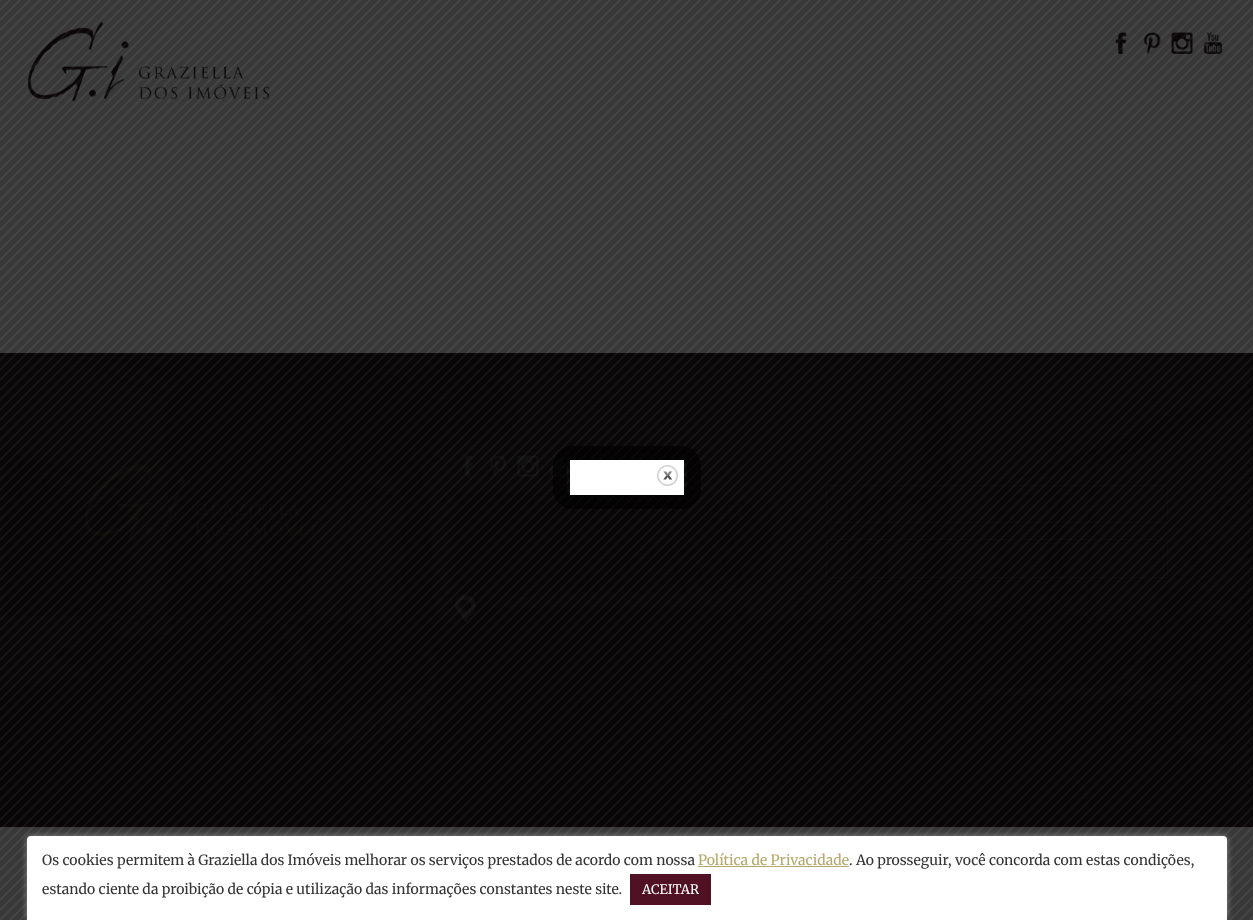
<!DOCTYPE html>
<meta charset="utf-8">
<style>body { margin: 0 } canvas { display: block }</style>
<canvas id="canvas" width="1253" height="920"></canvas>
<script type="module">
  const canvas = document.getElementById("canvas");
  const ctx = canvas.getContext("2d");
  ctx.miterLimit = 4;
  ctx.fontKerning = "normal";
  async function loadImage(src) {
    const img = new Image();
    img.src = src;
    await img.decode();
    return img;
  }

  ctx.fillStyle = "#ffffff";
  ctx.fillRect(0, 0, 1253, 920);
  ctx.drawImage(await loadImage("img2.png"), 28, 21, 241, 80);
  ctx.drawImage(await loadImage("img3.png"), 1115, 32, 12, 22);
  ctx.drawImage(await loadImage("img4.png"), 1143, 32, 18, 22);
  ctx.drawImage(await loadImage("img5.png"), 1171, 32, 22, 22);
  ctx.drawImage(await loadImage("img6.png"), 1203, 32, 20, 22);
  ctx.drawImage(await loadImage("img7.png"), 0, 353, 1253, 474);
  ctx.drawImage(await loadImage("img8.png"), 85, 459, 240, 79);
  ctx.drawImage(await loadImage("img9.png"), 462, 455, 12, 22);
  ctx.drawImage(await loadImage("img10.png"), 489, 455, 18, 22);
  ctx.drawImage(await loadImage("img11.png"), 517, 455, 22, 22);
  ctx.drawImage(await loadImage("img12.png"), 549, 455, 20, 22);
  ctx.drawImage(await loadImage("img13.png"), 455, 595, 21, 27);
  ctx.strokeStyle = "rgba(51, 51, 51, 0.5)";
  ctx.strokeRect(826.5, 485.5, 341, 37);
  ctx.strokeRect(826.5, 539.5, 341, 38);
  ctx.drawImage(await loadImage("img1.png"), 0, 0, 1253, 920);
  ctx.beginPath();
  ctx.roundRect(560, 453, 134, 49, 13);
  ctx.strokeStyle = "rgba(0, 0, 0, 0.6)";
  ctx.lineWidth = 14;
  ctx.stroke();
  ctx.fillRect(570, 460, 114, 35);
  ctx.drawImage(await loadImage("img14.png"), 657, 465, 21, 21);
  ctx.fillStyle = "rgba(170, 170, 170, 0.7)";
  ctx.filter = "blur(3px)";
  ctx.beginPath();
  ctx.roundRect(27, 836, 1200, 84, 4);
  ctx.fill();
  ctx.filter = "none";
  ctx.fillStyle = "#ffffff";
  ctx.beginPath();
  ctx.roundRect(27, 836, 1200, 84, [4, 4, 0, 0]);
  ctx.fill();
  ctx.font = "14px Merriweather";
  ctx.fillStyle = "#333333";
  ctx.fillText("Os cookies permitem à Graziella dos Imóveis melhorar os serviços prestados de acordo com nossa", 42, 865);
  ctx.fillStyle = "#b4a76c";
  ctx.fillText("Política de Privacidade", 698, 865);
  ctx.fillRect(698, 866, 151, 1);
  ctx.fillStyle = "#333333";
  ctx.fillText(". Ao prosseguir, você concorda com estas condições,", 849, 865);
  ctx.fillText("estando ciente da proibição de cópia e utilização das informações constantes neste site.", 42, 894);
  ctx.fillStyle = "#511125";
  ctx.fillRect(630, 874, 81, 31);
  ctx.font = "13px Merriweather";
  ctx.fillStyle = "#ffffff";
  ctx.fillText("ACEITAR", 642, 894);
</script>
